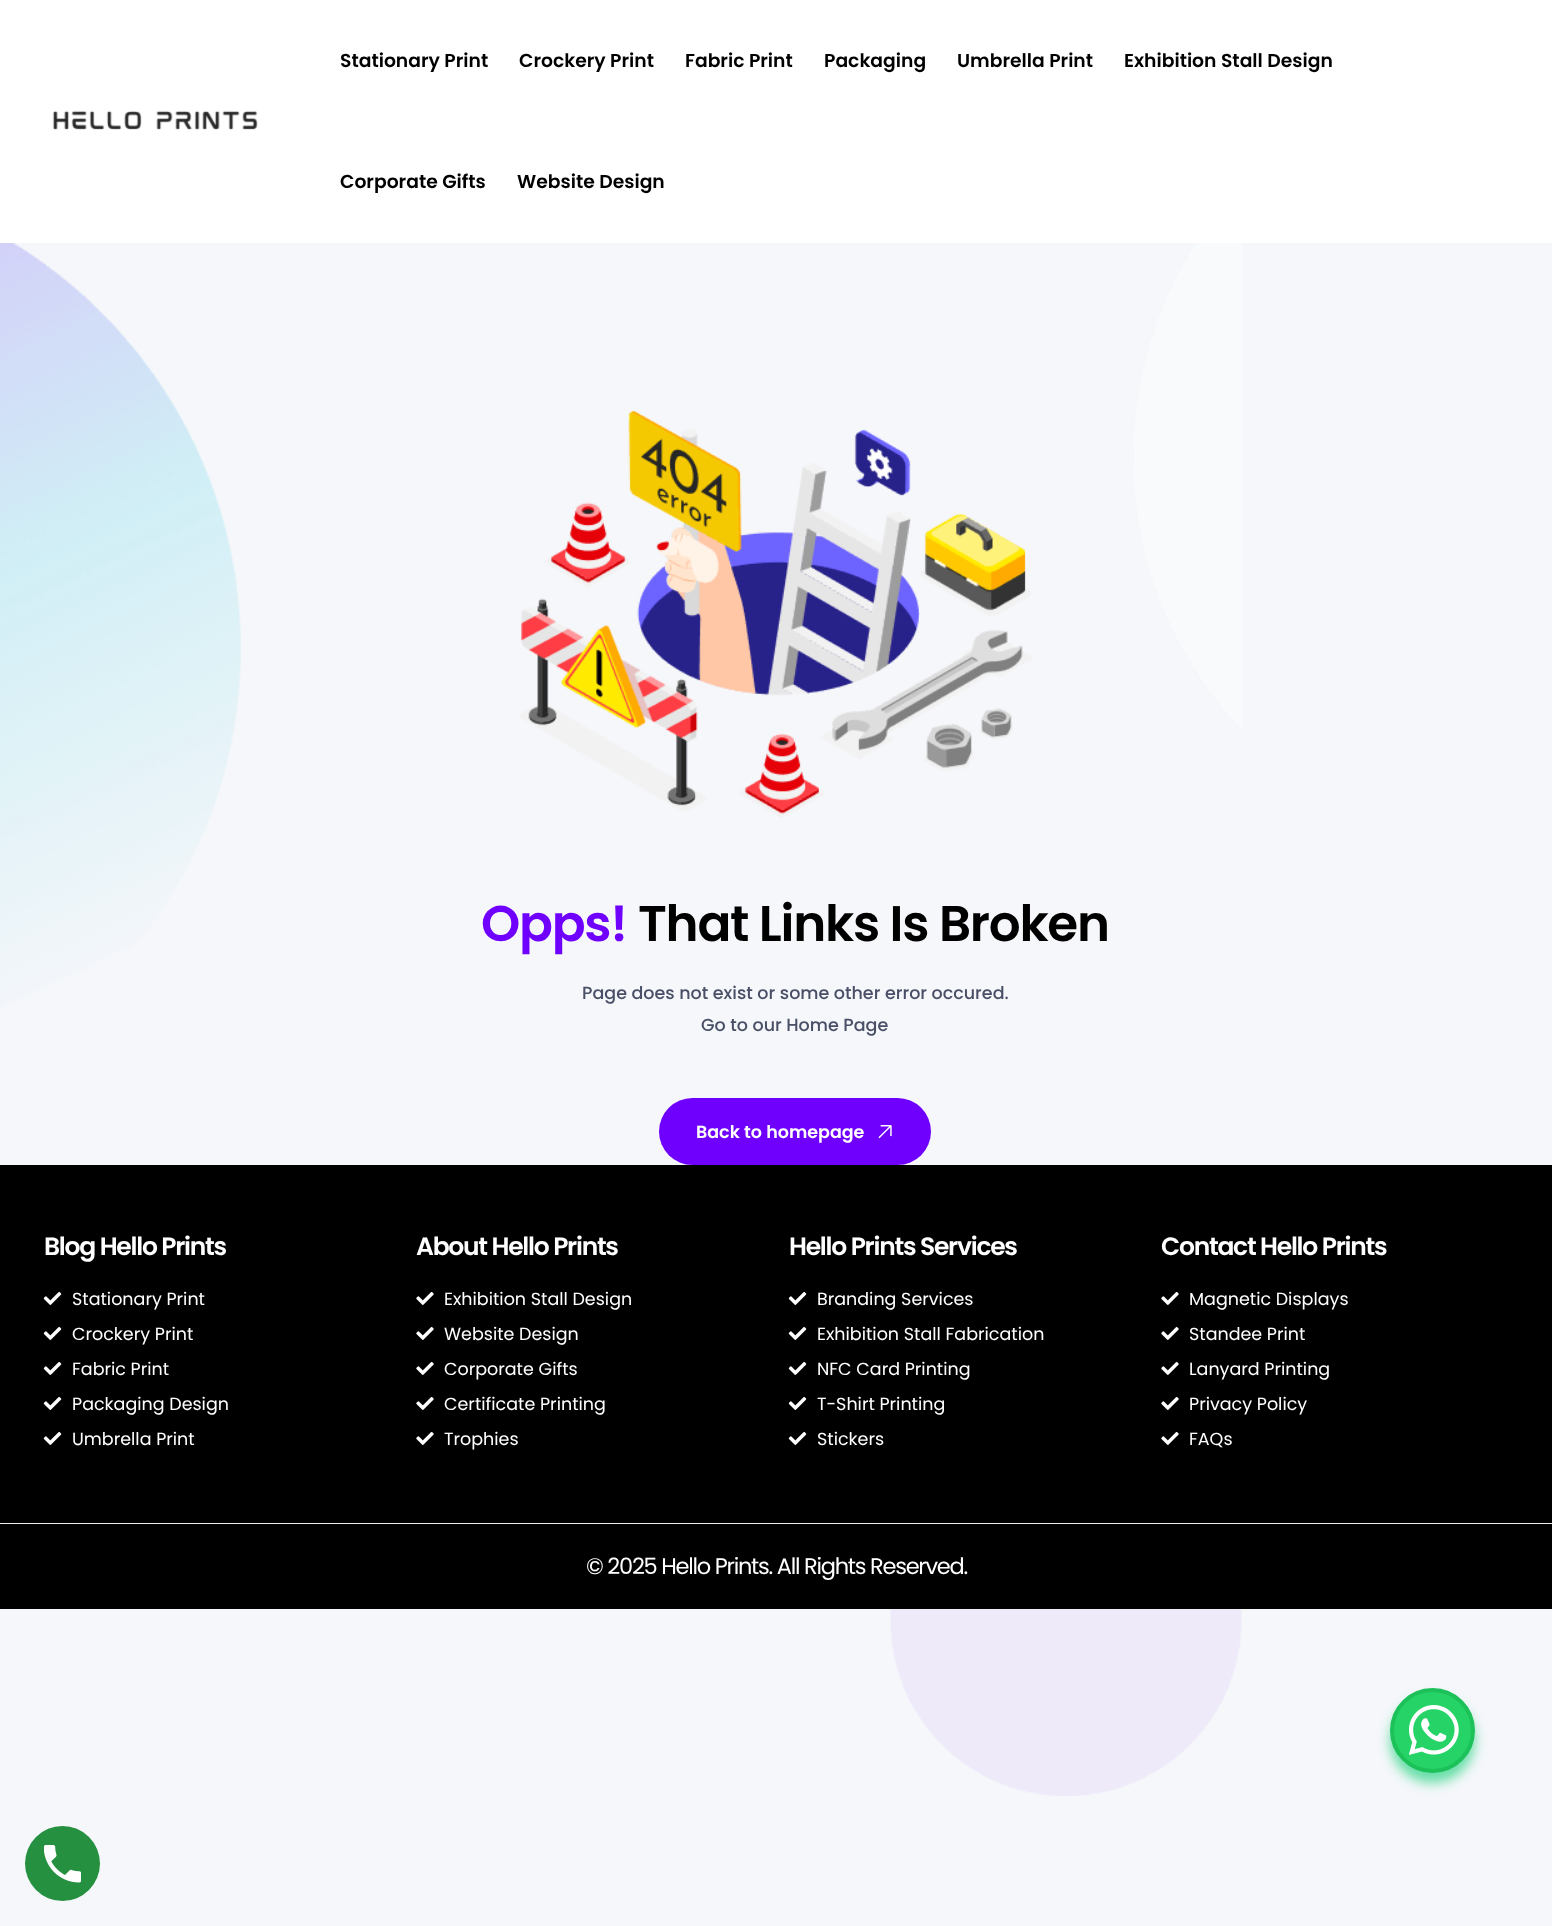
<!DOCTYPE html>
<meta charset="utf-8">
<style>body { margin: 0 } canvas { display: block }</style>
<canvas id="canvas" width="1552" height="1926"></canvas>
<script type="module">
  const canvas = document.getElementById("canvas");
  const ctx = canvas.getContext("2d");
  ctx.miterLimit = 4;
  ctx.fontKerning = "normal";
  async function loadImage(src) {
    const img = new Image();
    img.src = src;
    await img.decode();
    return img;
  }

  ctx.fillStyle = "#f5f7fa";
  ctx.fillRect(0, 0, 1552, 1926);
  ctx.fillStyle = "#ffffff";
  ctx.fillRect(0, 0, 1552, 243);
  ctx.drawImage(await loadImage("img1.png"), 52, 110, 206, 20);
  ctx.font = "600 18.75px Poppins";
  ctx.fillStyle = "#000000";
  ctx.fillText("Stationary Print", 340, 67);
  ctx.fillText("Crockery Print", 519, 67);
  ctx.fillText("Fabric Print", 685, 67);
  ctx.fillText("Packaging", 824, 67);
  ctx.fillText("Umbrella Print", 957, 67);
  ctx.fillText("Exhibition Stall Design", 1124, 67);
  ctx.fillText("Corporate Gifts", 340, 188);
  ctx.fillText("Website Design", 517, 188);
  ctx.drawImage(await loadImage("img2.png"), 0, 243, 1242, 1553);
  ctx.drawImage(await loadImage("img3.png"), 520, 411, 512, 407);
  ctx.letterSpacing = "-1.25px";
  ctx.font = "600 50px Poppins";
  ctx.fillStyle = "#7000fe";
  ctx.fillText("Opps!", 481, 941);
  ctx.fillStyle = "#000000";
  ctx.fillText("That Links Is Broken", 638, 941);
  ctx.letterSpacing = "0px";
  ctx.font = "500 17.5px Poppins";
  ctx.fillStyle = "#494f66";
  ctx.fillText("Page does not exist or some other error occured.", 582, 999);
  ctx.fillText("Go to our Home Page", 701, 1031);
  ctx.fillStyle = "#7000fe";
  ctx.beginPath();
  ctx.roundRect(659, 1098, 272, 67, 33.5);
  ctx.fill();
  ctx.font = "600 17.5px Poppins";
  ctx.fillStyle = "#ffffff";
  ctx.fillText("Back to homepage", 696, 1138);
  ctx.drawImage(await loadImage("img4.png"), 878, 1125, 14, 14);
  ctx.fillStyle = "#000000";
  ctx.fillRect(0, 1165, 1552, 358);
  ctx.letterSpacing = "-1.25px";
  ctx.font = "600 25px Poppins";
  ctx.fillStyle = "#ffffff";
  ctx.fillText("Blog Hello Prints", 44, 1255);
  ctx.drawImage(await loadImage("img5.png"), 43, 1291, 19, 14);
  ctx.letterSpacing = "0px";
  ctx.font = "17.5px Poppins";
  ctx.fillText("Stationary Print", 72, 1305);
  ctx.drawImage(await loadImage("img5.png"), 43, 1326, 19, 14);
  ctx.fillText("Crockery Print", 72, 1340);
  ctx.drawImage(await loadImage("img5.png"), 43, 1361, 19, 14);
  ctx.fillText("Fabric Print", 72, 1375);
  ctx.drawImage(await loadImage("img5.png"), 43, 1396, 19, 14);
  ctx.fillText("Packaging Design", 72, 1410);
  ctx.drawImage(await loadImage("img5.png"), 43, 1431, 19, 14);
  ctx.fillText("Umbrella Print", 72, 1445);
  ctx.letterSpacing = "-1.25px";
  ctx.font = "600 25px Poppins";
  ctx.fillText("About Hello Prints", 416, 1255);
  ctx.drawImage(await loadImage("img6.png"), 416, 1291, 18, 14);
  ctx.letterSpacing = "0px";
  ctx.font = "17.5px Poppins";
  ctx.fillText("Exhibition Stall Design", 444, 1305);
  ctx.drawImage(await loadImage("img6.png"), 416, 1326, 18, 14);
  ctx.fillText("Website Design", 444, 1340);
  ctx.drawImage(await loadImage("img6.png"), 416, 1361, 18, 14);
  ctx.fillText("Corporate Gifts", 444, 1375);
  ctx.drawImage(await loadImage("img6.png"), 416, 1396, 18, 14);
  ctx.fillText("Certificate Printing", 444, 1410);
  ctx.drawImage(await loadImage("img6.png"), 416, 1431, 18, 14);
  ctx.fillText("Trophies", 444, 1445);
  ctx.letterSpacing = "-1.25px";
  ctx.font = "600 25px Poppins";
  ctx.fillText("Hello Prints Services", 789, 1255);
  ctx.drawImage(await loadImage("img5.png"), 788, 1291, 19, 14);
  ctx.letterSpacing = "0px";
  ctx.font = "17.5px Poppins";
  ctx.fillText("Branding Services", 817, 1305);
  ctx.drawImage(await loadImage("img5.png"), 788, 1326, 19, 14);
  ctx.fillText("Exhibition Stall Fabrication", 817, 1340);
  ctx.drawImage(await loadImage("img5.png"), 788, 1361, 19, 14);
  ctx.fillText("NFC Card Printing", 817, 1375);
  ctx.drawImage(await loadImage("img5.png"), 788, 1396, 19, 14);
  ctx.fillText("T-Shirt Printing", 817, 1410);
  ctx.drawImage(await loadImage("img5.png"), 788, 1431, 19, 14);
  ctx.fillText("Stickers", 817, 1445);
  ctx.letterSpacing = "-1.25px";
  ctx.font = "600 25px Poppins";
  ctx.fillText("Contact Hello Prints", 1161, 1255);
  ctx.drawImage(await loadImage("img6.png"), 1161, 1291, 18, 14);
  ctx.letterSpacing = "0px";
  ctx.font = "17.5px Poppins";
  ctx.fillText("Magnetic Displays", 1189, 1305);
  ctx.drawImage(await loadImage("img6.png"), 1161, 1326, 18, 14);
  ctx.fillText("Standee Print", 1189, 1340);
  ctx.drawImage(await loadImage("img6.png"), 1161, 1361, 18, 14);
  ctx.fillText("Lanyard Printing", 1189, 1375);
  ctx.drawImage(await loadImage("img6.png"), 1161, 1396, 18, 14);
  ctx.fillText("Privacy Policy", 1189, 1410);
  ctx.drawImage(await loadImage("img6.png"), 1161, 1431, 18, 14);
  ctx.fillText("FAQs", 1189, 1445);
  ctx.fillStyle = "#000000";
  ctx.fillRect(0, 1524, 1552, 85);
  ctx.fillStyle = "#eeeeee";
  ctx.fillRect(0, 1523, 1552, 1);
  ctx.letterSpacing = "-1.25px";
  ctx.font = "22.5px Poppins";
  ctx.fillStyle = "#ffffff";
  ctx.fillText("© 2025 Hello Prints. All Rights Reserved.", 586, 1574);
  ctx.fillStyle = "rgba(7, 206, 112, 0.6)";
  ctx.filter = "blur(6px)";
  ctx.beginPath();
  ctx.roundRect(1390, 1698, 85, 85, 42.5);
  ctx.fill();
  ctx.filter = "none";
  ctx.fillStyle = "#25d366";
  ctx.beginPath();
  ctx.arc(1432.5, 1730.5, 40.5, 0, Math.PI * 2);
  ctx.fill();
  ctx.strokeStyle = "#1cc15a";
  ctx.lineWidth = 4;
  ctx.stroke();
  ctx.drawImage(await loadImage("img7.png"), 1409, 1705, 50, 50);
  ctx.fillStyle = "#269041";
  ctx.beginPath();
  ctx.arc(62.5, 1863.5, 37.5, 0, Math.PI * 2);
  ctx.fill();
  ctx.drawImage(await loadImage("img8.png"), 44, 1845, 37, 38);
</script>
